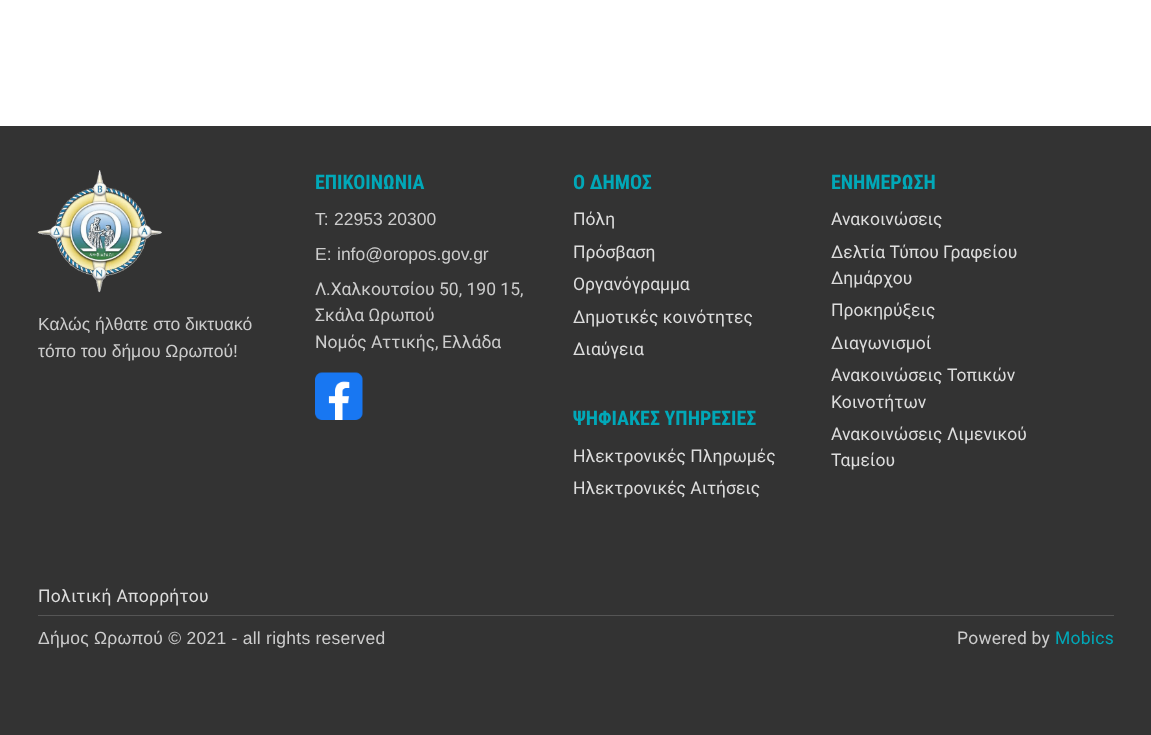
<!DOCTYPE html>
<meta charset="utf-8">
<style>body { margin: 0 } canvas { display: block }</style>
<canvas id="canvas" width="1151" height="735"></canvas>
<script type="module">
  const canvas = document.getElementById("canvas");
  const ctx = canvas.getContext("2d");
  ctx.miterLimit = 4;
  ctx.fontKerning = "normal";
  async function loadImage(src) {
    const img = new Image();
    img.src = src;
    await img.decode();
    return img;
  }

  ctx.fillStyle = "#ffffff";
  ctx.fillRect(0, 0, 1151, 735);
  ctx.fillStyle = "#333333";
  ctx.fillRect(0, 126, 1151, 609);
  ctx.drawImage(await loadImage("img1.png"), 37, 170, 125, 123);
  ctx.font = "17.5px Liberation Sans";
  ctx.fillStyle = "#cccccc";
  ctx.fillText("Καλώς ήλθατε στο δικτυακό", 38, 330);
  ctx.fillText("τόπο του δήμου Ωρωπού!", 38, 357);
  ctx.font = "bold 20px Roboto Condensed";
  ctx.fillStyle = "#01a8b8";
  ctx.fillText("ΕΠΙΚΟΙΝΩΝΙΑ", 315, 189);
  ctx.font = "17.5px Liberation Sans";
  ctx.fillStyle = "#cccccc";
  ctx.fillText("T:", 315, 225);
  ctx.fillText("22953 20300", 334, 225);
  ctx.fillText("E:", 315, 260);
  ctx.fillText("info@oropos.gov.gr", 337, 260);
  ctx.font = "17.5px Roboto";
  ctx.fillText("Λ Χαλκουτσίου", 315, 295);
  ctx.font = "17.5px 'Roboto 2'";
  ctx.fillText("50, 190 15,", 439, 295);
  ctx.fillText(".", 326, 295);
  ctx.font = "17.5px Roboto";
  ctx.fillText("Σκάλα Ωρωπού", 315, 321);
  ctx.fillText("Νομός Αττικής", 315, 348);
  ctx.font = "17.5px 'Roboto 2'";
  ctx.fillText(",", 435, 348);
  ctx.font = "17.5px Roboto";
  ctx.fillText("Ελλάδα", 442, 348);
  ctx.drawImage(await loadImage("img2.png"), 315, 372, 48, 48);
  ctx.font = "bold 20px Roboto Condensed";
  ctx.fillStyle = "#01a8b8";
  ctx.fillText("Ο ΔΗΜΟΣ", 573, 189);
  ctx.font = "17.5px Roboto";
  ctx.fillStyle = "#dddddd";
  ctx.fillText("Πόλη", 573, 225);
  ctx.fillText("Πρόσβαση", 573, 258);
  ctx.fillText("Οργανόγραμμα", 573, 290);
  ctx.fillText("Δημοτικές κοινότητες", 573, 323);
  ctx.fillText("Διαύγεια", 573, 355);
  ctx.font = "bold 20px Roboto Condensed";
  ctx.fillStyle = "#01a8b8";
  ctx.fillText("ΨΗΦΙΑΚΕΣ ΥΠΗΡΕΣΙΕΣ", 573, 425);
  ctx.font = "17.5px Roboto";
  ctx.fillStyle = "#dddddd";
  ctx.fillText("Ηλεκτρονικές Πληρωμές", 573, 462);
  ctx.fillText("Ηλεκτρονικές Αιτήσεις", 573, 494);
  ctx.font = "bold 20px Roboto Condensed";
  ctx.fillStyle = "#01a8b8";
  ctx.fillText("ΕΝΗΜΕΡΩΣΗ", 831, 189);
  ctx.font = "17.5px Roboto";
  ctx.fillStyle = "#dddddd";
  ctx.fillText("Ανακοινώσεις", 831, 225);
  ctx.fillText("Δελτία Τύπου Γραφείου", 831, 258);
  ctx.fillText("Δημάρχου", 831, 284);
  ctx.fillText("Προκηρύξεις", 831, 316);
  ctx.fillText("Διαγωνισμοί", 831, 349);
  ctx.fillText("Ανακοινώσεις Τοπικών", 831, 381);
  ctx.fillText("Κοινοτήτων", 831, 408);
  ctx.fillText("Ανακοινώσεις Λιμενικού", 831, 440);
  ctx.fillText("Ταμείου", 831, 466);
  ctx.fillStyle = "#555555";
  ctx.fillRect(38, 615, 1076, 1);
  ctx.letterSpacing = "0.25px";
  ctx.fillStyle = "#dddddd";
  ctx.fillText("Πολιτική Απορρήτου", 38, 602);
  ctx.font = "17.5px Liberation Sans";
  ctx.fillStyle = "#cccccc";
  ctx.fillText("Δήμος Ωρωπού © 2021 - all rights reserved", 38, 644);
  ctx.font = "17.5px 'Roboto 2'";
  ctx.fillText("Powered by", 957, 644);
  ctx.fillStyle = "#01a8b8";
  ctx.fillText("Mobics", 1055, 644);
</script>
